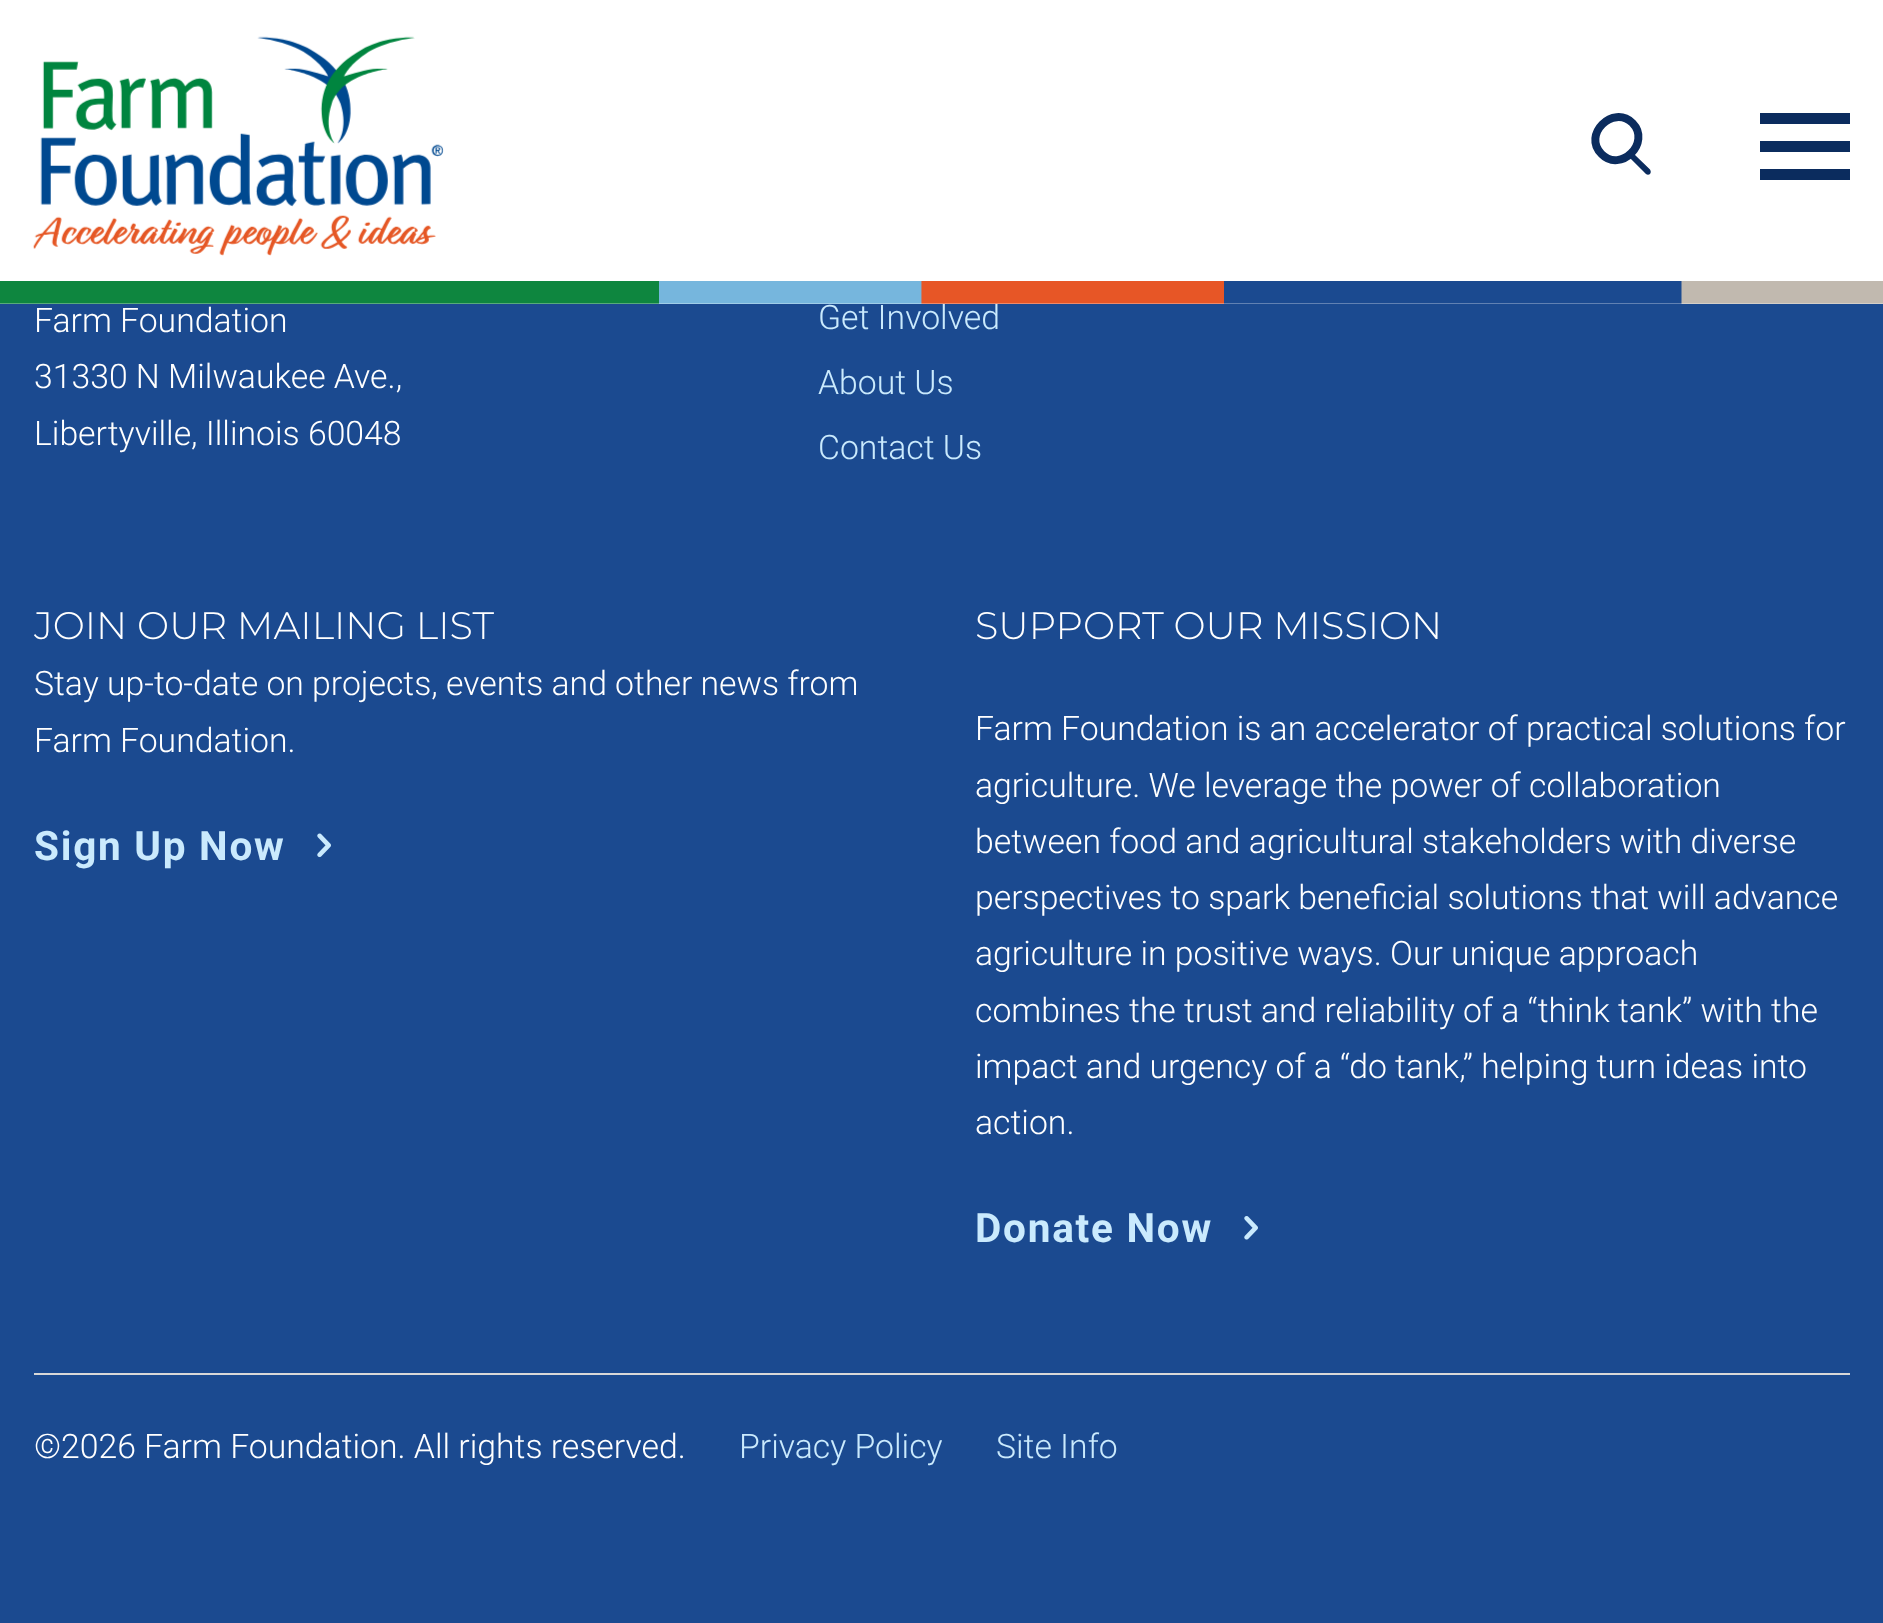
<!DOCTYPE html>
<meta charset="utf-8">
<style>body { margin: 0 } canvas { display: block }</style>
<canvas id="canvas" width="1883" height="1623"></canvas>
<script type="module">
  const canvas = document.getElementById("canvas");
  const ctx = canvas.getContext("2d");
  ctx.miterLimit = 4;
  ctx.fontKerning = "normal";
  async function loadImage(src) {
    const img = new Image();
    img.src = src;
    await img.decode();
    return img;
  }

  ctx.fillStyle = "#1b4a90";
  ctx.fillRect(0, 0, 1883, 1623);
  ctx.font = "300 33.75px Roboto";
  ctx.fillStyle = "#caeafd";
  ctx.fillText("Get Involved", 818, 329);
  ctx.fillStyle = "#ffffff";
  ctx.fillRect(0, 0, 1883, 304);
  ctx.drawImage(await loadImage("img1.png"), 33, 36, 411, 220);
  ctx.fillStyle = "#0b2c5e";
  ctx.beginPath();
  ctx.moveTo(1630.5, 154.5);
  ctx.bezierCurveTo(1631.5, 153, 1633.5, 153, 1634.5, 154.5);
  ctx.lineTo(1650, 169.5);
  ctx.bezierCurveTo(1651, 171, 1651, 172.5, 1650, 174);
  ctx.bezierCurveTo(1649, 175, 1647, 175, 1646, 174);
  ctx.lineTo(1630.5, 158.5);
  ctx.bezierCurveTo(1629.5, 157.5, 1629.5, 155.5, 1630.5, 154.5);
  ctx.closePath();
  ctx.fill("evenodd");
  ctx.beginPath();
  ctx.moveTo(1632.5, 123);
  ctx.bezierCurveTo(1651.5, 142.5, 1620.5, 173.5, 1601.5, 154);
  ctx.bezierCurveTo(1582, 135, 1613, 104, 1632.5, 123);
  ctx.closePath();
  ctx.strokeStyle = "#0b2c5e";
  ctx.lineWidth = 8;
  ctx.stroke();
  ctx.fillRect(1760, 169, 90, 11);
  ctx.fillRect(1760, 141, 90, 11);
  ctx.fillRect(1760, 113, 90, 11);
  ctx.drawImage(await loadImage("img2.png"), 0, 281, 1883, 23);
  ctx.fillStyle = "#ffffff";
  ctx.fillText("Farm Foundation", 34, 332);
  ctx.fillText("31330 N Milwaukee Ave.,", 34, 388);
  ctx.fillText("Libertyville, Illinois 60048", 34, 445);
  ctx.fillStyle = "#caeafd";
  ctx.fillText("About Us", 818, 394);
  ctx.fillText("Contact Us", 818, 459);
  ctx.font = "300 38.25px Montserrat";
  ctx.fillStyle = "#ffffff";
  ctx.fillText("JOIN OUR MAILING LIST", 34, 639);
  ctx.font = "300 33.75px Roboto";
  ctx.fillText("Stay up-to-date on projects, events and other news from", 34, 695);
  ctx.fillText("Farm Foundation.", 34, 752);
  ctx.letterSpacing = "1.75px";
  ctx.font = "bold 40.5px Roboto";
  ctx.fillStyle = "#caeafd";
  ctx.fillText("Sign Up Now", 34, 860);
  ctx.drawImage(await loadImage("img3.png"), 317, 833, 14, 25);
  ctx.letterSpacing = "0px";
  ctx.font = "300 38.25px Montserrat";
  ctx.fillStyle = "#ffffff";
  ctx.fillText("SUPPORT OUR MISSION", 975, 639);
  ctx.font = "300 33.75px Roboto";
  ctx.fillText("Farm Foundation is an accelerator of practical solutions for", 975, 740);
  ctx.fillText("agriculture. We leverage the power of collaboration", 975, 797);
  ctx.fillText("between food and agricultural stakeholders with diverse", 975, 853);
  ctx.fillText("perspectives to spark beneficial solutions that will advance", 975, 909);
  ctx.fillText("agriculture in positive ways. Our unique approach", 975, 965);
  ctx.fillText("combines the trust and reliability of a “think tank” with the", 975, 1022);
  ctx.fillText("impact and urgency of a “do tank,” helping turn ideas into", 975, 1078);
  ctx.fillText("action.", 975, 1134);
  ctx.letterSpacing = "1.75px";
  ctx.font = "bold 40.5px Roboto";
  ctx.fillStyle = "#caeafd";
  ctx.fillText("Donate Now", 975, 1242);
  ctx.drawImage(await loadImage("img4.png"), 1244, 1216, 14, 24);
  ctx.fillStyle = "#d8d8d8";
  ctx.fillRect(34, 1373, 1816, 2);
  ctx.letterSpacing = "0px";
  ctx.font = "300 33.75px Roboto";
  ctx.fillStyle = "#ffffff";
  ctx.fillText("©2026 Farm Foundation. All rights reserved.", 34, 1458);
  ctx.fillStyle = "#caeafd";
  ctx.fillText("Privacy Policy", 739, 1458);
  ctx.fillText("Site Info", 996, 1458);
</script>
